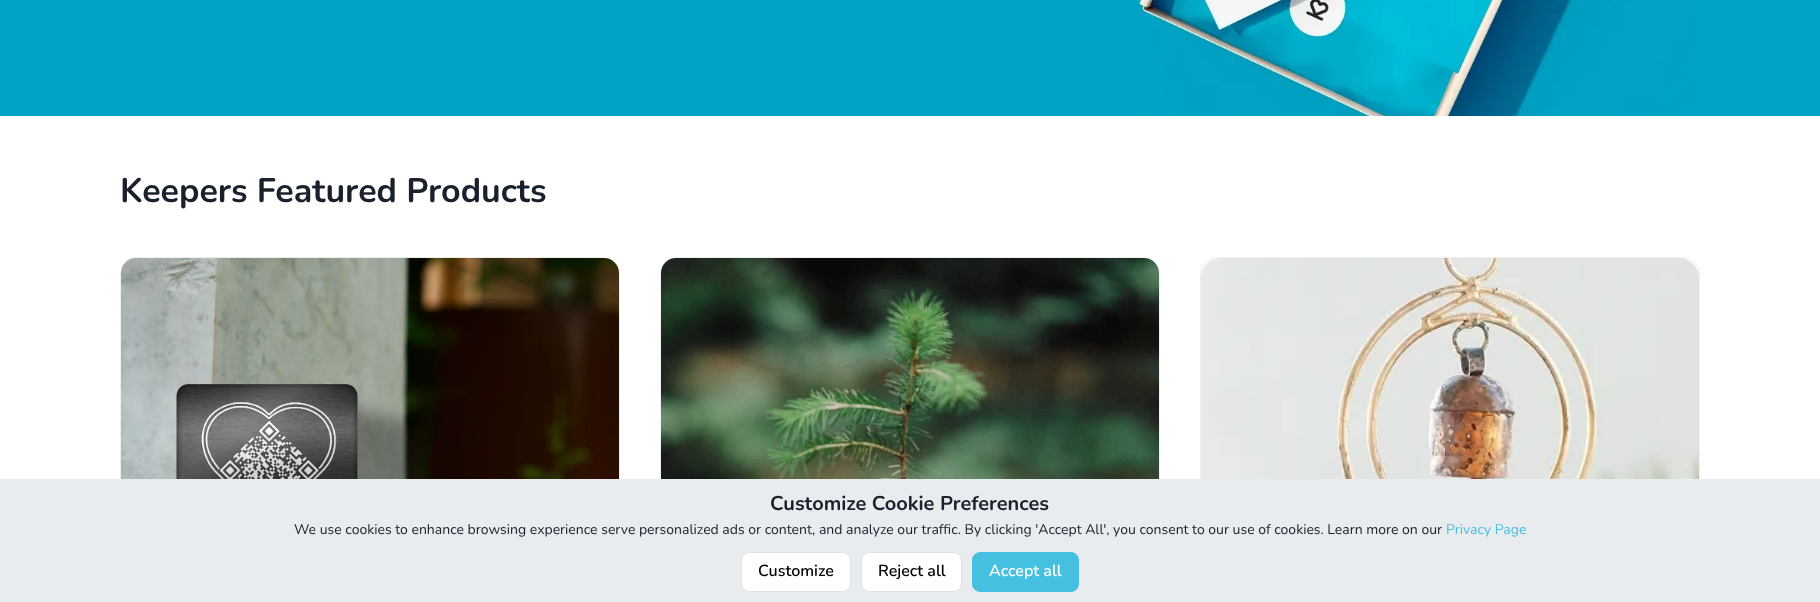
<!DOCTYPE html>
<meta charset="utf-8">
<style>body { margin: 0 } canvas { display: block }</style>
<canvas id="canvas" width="1820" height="602"></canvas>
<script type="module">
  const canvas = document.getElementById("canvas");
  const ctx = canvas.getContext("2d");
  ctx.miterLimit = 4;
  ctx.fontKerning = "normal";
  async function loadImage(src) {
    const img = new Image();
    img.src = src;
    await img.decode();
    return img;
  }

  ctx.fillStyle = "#ffffff";
  ctx.fillRect(0, 0, 1820, 602);
  ctx.fillStyle = "#00a3c6";
  ctx.fillRect(0, 0, 1820, 116);
  ctx.drawImage(await loadImage("img1.png"), 1137, 0, 565, 116);
  ctx.font = "bold 34px Nunito";
  ctx.fillStyle = "#1a202c";
  ctx.fillText("Keepers Featured Products", 120, 202);
  ctx.beginPath();
  ctx.roundRect(120.5, 257.5, 499, 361, 15.5);
  ctx.strokeStyle = "#f0f0f0";
  ctx.stroke();
  ctx.drawImage(await loadImage("img2.png"), 121, 258, 498, 221);
  ctx.beginPath();
  ctx.roundRect(660.5, 257.5, 499, 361, 15.5);
  ctx.stroke();
  ctx.drawImage(await loadImage("img3.png"), 661, 258, 498, 221);
  ctx.beginPath();
  ctx.roundRect(1200.5, 257.5, 499, 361, 15.5);
  ctx.stroke();
  ctx.drawImage(await loadImage("img4.png"), 1201, 258, 498, 221);
  ctx.fillStyle = "#e9ecef";
  ctx.fillRect(0, 479, 1820, 123);
  ctx.font = "bold 20px Nunito";
  ctx.fillStyle = "#1a202c";
  ctx.fillText("Customize Cookie Preferences", 770, 510);
  ctx.font = "14px Nunito";
  ctx.fillText("We use cookies to enhance browsing experience serve personalized ads or content, and analyze our traffic. By clicking 'Accept All', you consent to our use of cookies. Learn more on our", 294, 534);
  ctx.fillStyle = "#46c0e1";
  ctx.fillText("Privacy Page", 1446, 534);
  ctx.fillStyle = "#ffffff";
  ctx.beginPath();
  ctx.roundRect(741.5, 552.5, 109, 39, 7.5);
  ctx.fill();
  ctx.strokeStyle = "#dde2e7";
  ctx.stroke();
  ctx.font = "600 16px Nunito";
  ctx.fillStyle = "#000000";
  ctx.fillText("Customize", 758, 576);
  ctx.fillStyle = "#ffffff";
  ctx.beginPath();
  ctx.roundRect(861.5, 552.5, 100, 39, 7.5);
  ctx.fill();
  ctx.stroke();
  ctx.fillStyle = "#000000";
  ctx.fillText("Reject all", 878, 576);
  ctx.fillStyle = "#46c0e1";
  ctx.beginPath();
  ctx.roundRect(972.5, 552.5, 106, 39, 7.5);
  ctx.fill();
  ctx.strokeStyle = "#46c0e1";
  ctx.stroke();
  ctx.fillStyle = "#ffffff";
  ctx.fillText("Accept all", 989, 576);
</script>
